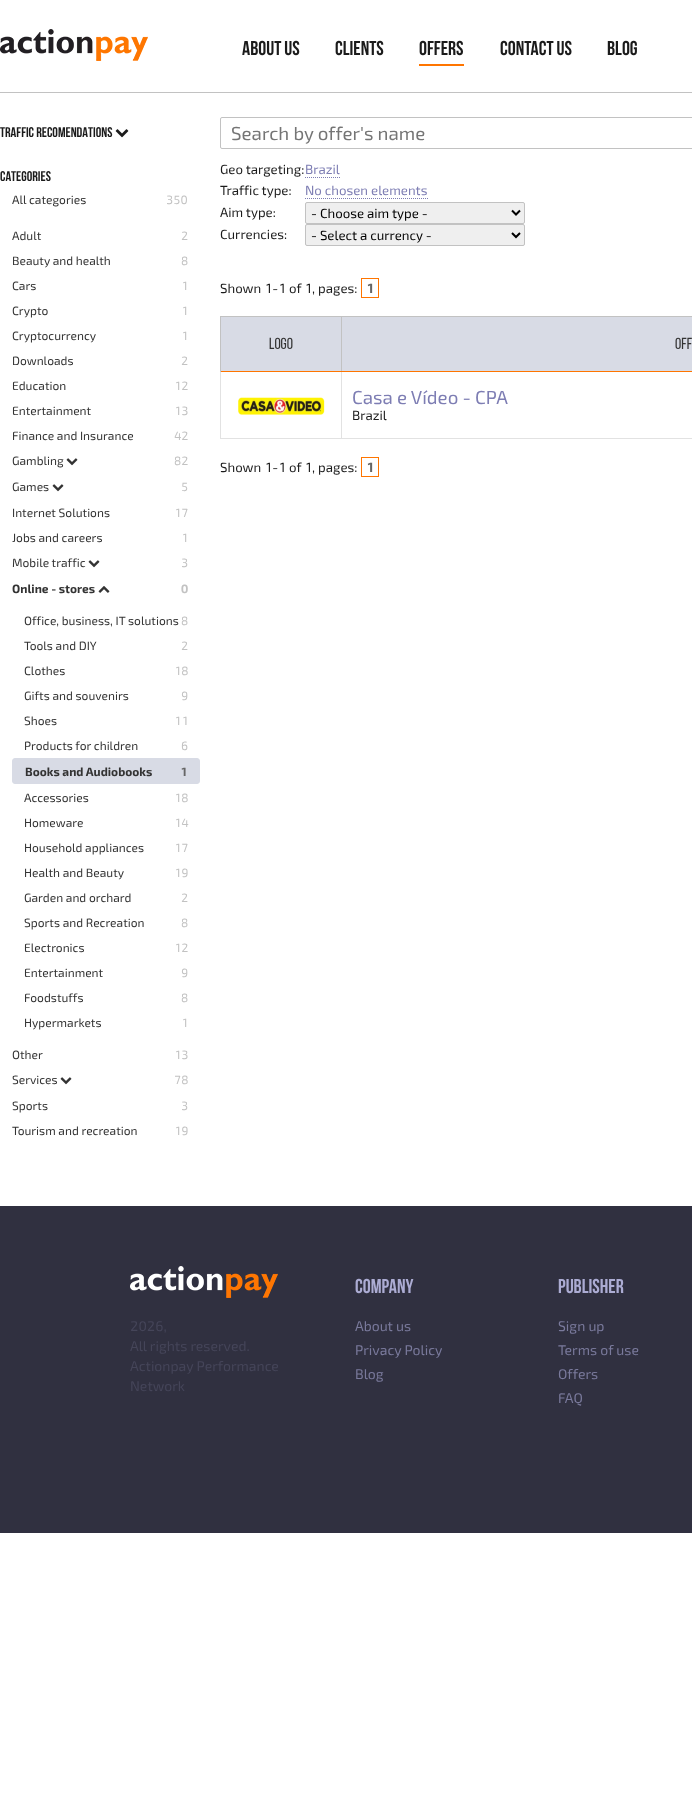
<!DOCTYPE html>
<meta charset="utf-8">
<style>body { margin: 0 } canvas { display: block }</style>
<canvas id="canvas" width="692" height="1808"></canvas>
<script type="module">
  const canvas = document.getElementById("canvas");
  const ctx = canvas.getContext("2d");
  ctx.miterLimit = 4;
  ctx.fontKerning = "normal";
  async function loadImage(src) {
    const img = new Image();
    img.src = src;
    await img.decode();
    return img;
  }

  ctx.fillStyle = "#ffffff";
  ctx.fillRect(0, 0, 692, 1808);
  ctx.fillStyle = "#c2c2c2";
  ctx.fillRect(0, 92, 692, 1);
  ctx.drawImage(await loadImage("img1.png"), 0, 29, 148, 32);
  ctx.font = "bold 20px Bebas Neue";
  ctx.fillStyle = "#1b1b1b";
  ctx.fillText("ABOUT US", 242, 55);
  ctx.fillText("CLIENTS", 335, 55);
  ctx.fillText("OFFERS", 419, 55);
  ctx.fillStyle = "#ff7500";
  ctx.fillRect(419, 64, 45, 2);
  ctx.fillStyle = "#1b1b1b";
  ctx.fillText("CONTACT US", 500, 55);
  ctx.fillText("BLOG", 607, 55);
  ctx.font = "bold 14px Bebas Neue";
  ctx.fillText("TRAFFIC RECOMENDATIONS", 0, 137);
  ctx.drawImage(await loadImage("img2.png"), 115, 129, 14, 9);
  ctx.fillText("CATEGORIES", 0, 181);
  ctx.font = "12px 'Exo 2'";
  ctx.fillStyle = "#333333";
  ctx.fillText("All categories", 12, 204);
  ctx.fillStyle = "#c2c2c2";
  ctx.fillText("350", 166, 204);
  ctx.fillStyle = "#333333";
  ctx.fillText("Adult", 12, 240);
  ctx.fillStyle = "#c2c2c2";
  ctx.fillText("2", 181, 240);
  ctx.fillStyle = "#333333";
  ctx.fillText("Beauty and health", 12, 265);
  ctx.fillStyle = "#c2c2c2";
  ctx.fillText("8", 181, 265);
  ctx.fillStyle = "#333333";
  ctx.fillText("Cars", 12, 290);
  ctx.fillStyle = "#c2c2c2";
  ctx.fillText("1", 181, 290);
  ctx.fillStyle = "#333333";
  ctx.fillText("Crypto", 12, 315);
  ctx.fillStyle = "#c2c2c2";
  ctx.fillText("1", 181, 315);
  ctx.fillStyle = "#333333";
  ctx.fillText("Cryptocurrency", 12, 340);
  ctx.fillStyle = "#c2c2c2";
  ctx.fillText("1", 181, 340);
  ctx.fillStyle = "#333333";
  ctx.fillText("Downloads", 12, 365);
  ctx.fillStyle = "#c2c2c2";
  ctx.fillText("2", 181, 365);
  ctx.fillStyle = "#333333";
  ctx.fillText("Education", 12, 390);
  ctx.fillStyle = "#c2c2c2";
  ctx.fillText("12", 174, 390);
  ctx.fillStyle = "#333333";
  ctx.fillText("Entertainment", 12, 415);
  ctx.fillStyle = "#c2c2c2";
  ctx.fillText("13", 174, 415);
  ctx.fillStyle = "#333333";
  ctx.fillText("Finance and Insurance", 12, 440);
  ctx.fillStyle = "#c2c2c2";
  ctx.fillText("42", 174, 440);
  ctx.fillStyle = "#333333";
  ctx.fillText("Gambling", 12, 465);
  ctx.drawImage(await loadImage("img3.png"), 66, 458, 12, 8);
  ctx.fillStyle = "#c2c2c2";
  ctx.fillText("82", 174, 465);
  ctx.fillStyle = "#333333";
  ctx.fillText("Games", 12, 491);
  ctx.drawImage(await loadImage("img3.png"), 52, 484, 12, 8);
  ctx.fillStyle = "#c2c2c2";
  ctx.fillText("5", 181, 491);
  ctx.fillStyle = "#333333";
  ctx.fillText("Internet Solutions", 12, 517);
  ctx.fillStyle = "#c2c2c2";
  ctx.fillText("17", 174, 517);
  ctx.fillStyle = "#333333";
  ctx.fillText("Jobs and careers", 12, 542);
  ctx.fillStyle = "#c2c2c2";
  ctx.fillText("1", 181, 542);
  ctx.fillStyle = "#333333";
  ctx.fillText("Mobile traffic", 12, 567);
  ctx.drawImage(await loadImage("img3.png"), 88, 560, 12, 8);
  ctx.fillStyle = "#c2c2c2";
  ctx.fillText("3", 181, 567);
  ctx.font = "bold 12px 'Exo 2'";
  ctx.fillStyle = "#333333";
  ctx.fillText("Online - stores", 12, 593);
  ctx.drawImage(await loadImage("img4.png"), 98, 586, 12, 7);
  ctx.fillStyle = "#c2c2c2";
  ctx.fillText("0", 181, 593);
  ctx.font = "12px 'Exo 2'";
  ctx.fillStyle = "#333333";
  ctx.fillText("Office, business, IT solutions", 24, 625);
  ctx.fillStyle = "#c2c2c2";
  ctx.fillText("8", 181, 625);
  ctx.fillStyle = "#333333";
  ctx.fillText("Tools and DIY", 24, 650);
  ctx.fillStyle = "#c2c2c2";
  ctx.fillText("2", 181, 650);
  ctx.fillStyle = "#333333";
  ctx.fillText("Clothes", 24, 675);
  ctx.fillStyle = "#c2c2c2";
  ctx.fillText("18", 174, 675);
  ctx.fillStyle = "#333333";
  ctx.fillText("Gifts and souvenirs", 24, 700);
  ctx.fillStyle = "#c2c2c2";
  ctx.fillText("9", 181, 700);
  ctx.fillStyle = "#333333";
  ctx.fillText("Shoes", 24, 725);
  ctx.fillStyle = "#c2c2c2";
  ctx.fillText("11", 174, 725);
  ctx.fillStyle = "#333333";
  ctx.fillText("Products for children", 24, 750);
  ctx.fillStyle = "#c2c2c2";
  ctx.fillText("6", 181, 750);
  ctx.fillStyle = "#d8dbe5";
  ctx.beginPath();
  ctx.roundRect(12.5, 758.5, 187, 25, 2.5);
  ctx.fill();
  ctx.strokeStyle = "#d8dbe5";
  ctx.stroke();
  ctx.font = "bold 12px 'Exo 2'";
  ctx.fillStyle = "#333333";
  ctx.fillText("Books and Audiobooks", 25, 776);
  ctx.fillStyle = "#666666";
  ctx.fillText("1", 180, 776);
  ctx.font = "12px 'Exo 2'";
  ctx.fillStyle = "#333333";
  ctx.fillText("Accessories", 24, 802);
  ctx.fillStyle = "#c2c2c2";
  ctx.fillText("18", 174, 802);
  ctx.fillStyle = "#333333";
  ctx.fillText("Homeware", 24, 827);
  ctx.fillStyle = "#c2c2c2";
  ctx.fillText("14", 174, 827);
  ctx.fillStyle = "#333333";
  ctx.fillText("Household appliances", 24, 852);
  ctx.fillStyle = "#c2c2c2";
  ctx.fillText("17", 174, 852);
  ctx.fillStyle = "#333333";
  ctx.fillText("Health and Beauty", 24, 877);
  ctx.fillStyle = "#c2c2c2";
  ctx.fillText("19", 174, 877);
  ctx.fillStyle = "#333333";
  ctx.fillText("Garden and orchard", 24, 902);
  ctx.fillStyle = "#c2c2c2";
  ctx.fillText("2", 181, 902);
  ctx.fillStyle = "#333333";
  ctx.fillText("Sports and Recreation", 24, 927);
  ctx.fillStyle = "#c2c2c2";
  ctx.fillText("8", 181, 927);
  ctx.fillStyle = "#333333";
  ctx.fillText("Electronics", 24, 952);
  ctx.fillStyle = "#c2c2c2";
  ctx.fillText("12", 174, 952);
  ctx.fillStyle = "#333333";
  ctx.fillText("Entertainment", 24, 977);
  ctx.fillStyle = "#c2c2c2";
  ctx.fillText("9", 181, 977);
  ctx.fillStyle = "#333333";
  ctx.fillText("Foodstuffs", 24, 1002);
  ctx.fillStyle = "#c2c2c2";
  ctx.fillText("8", 181, 1002);
  ctx.fillStyle = "#333333";
  ctx.fillText("Hypermarkets", 24, 1027);
  ctx.fillStyle = "#c2c2c2";
  ctx.fillText("1", 181, 1027);
  ctx.fillStyle = "#333333";
  ctx.fillText("Other", 12, 1059);
  ctx.fillStyle = "#c2c2c2";
  ctx.fillText("13", 174, 1059);
  ctx.fillStyle = "#333333";
  ctx.fillText("Services", 12, 1084);
  ctx.drawImage(await loadImage("img3.png"), 60, 1077, 12, 8);
  ctx.fillStyle = "#c2c2c2";
  ctx.fillText("78", 174, 1084);
  ctx.fillStyle = "#333333";
  ctx.fillText("Sports", 12, 1110);
  ctx.fillStyle = "#c2c2c2";
  ctx.fillText("3", 181, 1110);
  ctx.fillStyle = "#333333";
  ctx.fillText("Tourism and recreation", 12, 1135);
  ctx.fillStyle = "#c2c2c2";
  ctx.fillText("19", 174, 1135);
  ctx.beginPath();
  ctx.roundRect(220.5, 117.5, 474, 31, 1.5);
  ctx.strokeStyle = "#c2c2c2";
  ctx.stroke();
  ctx.font = "18.75px 'Exo 2'";
  ctx.fillStyle = "#757575";
  ctx.fillText("Search by offer's name", 231, 140);
  ctx.font = "13.25px 'Exo 2'";
  ctx.fillStyle = "#1b1b1b";
  ctx.fillText("Geo targeting:", 220, 174);
  ctx.fillStyle = "#7d7db3";
  ctx.fillText("Brazil", 305, 174);
  ctx.beginPath();
  ctx.moveTo(305, 177.5);
  ctx.lineTo(340, 177.5);
  ctx.strokeStyle = "#7d7db3";
  ctx.setLineDash([1, 1]);
  ctx.stroke();
  ctx.fillStyle = "#1b1b1b";
  ctx.fillText("Traffic type:", 220, 195);
  ctx.fillStyle = "#7d7db3";
  ctx.fillText("No chosen elements", 305, 195);
  ctx.beginPath();
  ctx.moveTo(305, 198.5);
  ctx.lineTo(428, 198.5);
  ctx.stroke();
  ctx.fillStyle = "#1b1b1b";
  ctx.fillText("Aim type:", 220, 217);
  ctx.fillStyle = "#efefef";
  ctx.beginPath();
  ctx.roundRect(305.5, 202.5, 219, 21, 1.5);
  ctx.fill();
  ctx.strokeStyle = "#c2c2c2";
  ctx.setLineDash([]);
  ctx.stroke();
  ctx.beginPath();
  ctx.moveTo(512, 210.5);
  ctx.lineTo(516, 214.5);
  ctx.lineTo(520, 210.5);
  ctx.strokeStyle = "#000000";
  ctx.lineWidth = 2;
  ctx.stroke();
  ctx.fillStyle = "#000000";
  ctx.fillText("- Choose aim type -", 311, 218);
  ctx.fillStyle = "#1b1b1b";
  ctx.fillText("Currencies:", 220, 239);
  ctx.fillStyle = "#efefef";
  ctx.beginPath();
  ctx.roundRect(305.5, 224.5, 219, 21, 1.5);
  ctx.fill();
  ctx.strokeStyle = "#c2c2c2";
  ctx.lineWidth = 1;
  ctx.stroke();
  ctx.beginPath();
  ctx.moveTo(512, 233);
  ctx.lineTo(516, 237);
  ctx.lineTo(520, 233);
  ctx.strokeStyle = "#000000";
  ctx.lineWidth = 2;
  ctx.stroke();
  ctx.fillStyle = "#000000";
  ctx.fillText("- Select a currency -", 311, 240);
  ctx.fillStyle = "#1b1b1b";
  ctx.fillText("Shown 1-", 220, 293);
  ctx.fillText("1 of 1, pages:", 278, 293);
  ctx.strokeStyle = "#ff7500";
  ctx.lineWidth = 1;
  ctx.strokeRect(361.5, 278.5, 17, 19);
  ctx.font = "bold 13.25px 'Exo 2'";
  ctx.fillStyle = "#666666";
  ctx.fillText("1", 366, 293);
  ctx.fillStyle = "#c2c2c2";
  ctx.fillRect(220, 316, 472, 1);
  ctx.fillStyle = "#d8dbe5";
  ctx.fillRect(221, 317, 120, 54);
  ctx.fillStyle = "#e2e2e2";
  ctx.fillRect(341, 438, 351, 1);
  ctx.fillRect(341, 371, 1, 68);
  ctx.fillStyle = "#ff7500";
  ctx.fillRect(341, 371, 351, 1);
  ctx.fillStyle = "#c2c2c2";
  ctx.fillRect(341, 316, 1, 56);
  ctx.fillStyle = "#e2e2e2";
  ctx.fillRect(220, 438, 122, 1);
  ctx.fillRect(220, 371, 1, 68);
  ctx.fillStyle = "#ff7500";
  ctx.fillRect(220, 371, 122, 1);
  ctx.fillStyle = "#c2c2c2";
  ctx.fillRect(220, 316, 1, 56);
  ctx.font = "16px Bebas Neue";
  ctx.fillStyle = "#333333";
  ctx.fillText("LOGO", 269, 349);
  ctx.fillStyle = "#d8dbe5";
  ctx.fillRect(342, 317, 350, 54);
  ctx.fillStyle = "#333333";
  ctx.fillText("OFF", 675, 349);
  ctx.drawImage(await loadImage("img5.png"), 238, 397, 87, 18);
  ctx.font = "18.75px 'Exo 2'";
  ctx.fillStyle = "#7d7db3";
  ctx.fillText("Casa e Vídeo - CPA", 352, 404);
  ctx.font = "13.25px 'Exo 2'";
  ctx.fillStyle = "#1b1b1b";
  ctx.fillText("Brazil", 352, 420);
  ctx.fillText("Shown 1-", 220, 472);
  ctx.fillText("1 of 1, pages:", 278, 472);
  ctx.strokeRect(361.5, 457.5, 17, 19);
  ctx.font = "bold 13.25px 'Exo 2'";
  ctx.fillStyle = "#666666";
  ctx.fillText("1", 366, 472);
  ctx.fillStyle = "#303040";
  ctx.fillRect(0, 1206, 692, 327);
  ctx.drawImage(await loadImage("img6.png"), 130, 1266, 148, 32);
  ctx.font = "14px 'Exo 2'";
  ctx.fillStyle = "#454559";
  ctx.fillText("2026,", 130, 1331);
  ctx.fillText("All rights reserved.", 130, 1351);
  ctx.fillText("Actionpay Performance", 130, 1371);
  ctx.fillText("Network", 130, 1391);
  ctx.font = "bold 20px Bebas Neue";
  ctx.fillStyle = "#acacd3";
  ctx.fillText("COMPANY", 355, 1293);
  ctx.font = "14px 'Exo 2'";
  ctx.fillStyle = "#7a7a9c";
  ctx.fillText("About us", 355, 1331);
  ctx.fillText("Privacy Policy", 355, 1355);
  ctx.fillText("Blog", 355, 1379);
  ctx.font = "bold 20px Bebas Neue";
  ctx.fillStyle = "#acacd3";
  ctx.fillText("PUBLISHER", 558, 1293);
  ctx.font = "14px 'Exo 2'";
  ctx.fillStyle = "#7a7a9c";
  ctx.fillText("Sign up", 558, 1331);
  ctx.fillText("Terms of use", 558, 1355);
  ctx.fillText("Offers", 558, 1379);
  ctx.fillText("FAQ", 558, 1403);
</script>
